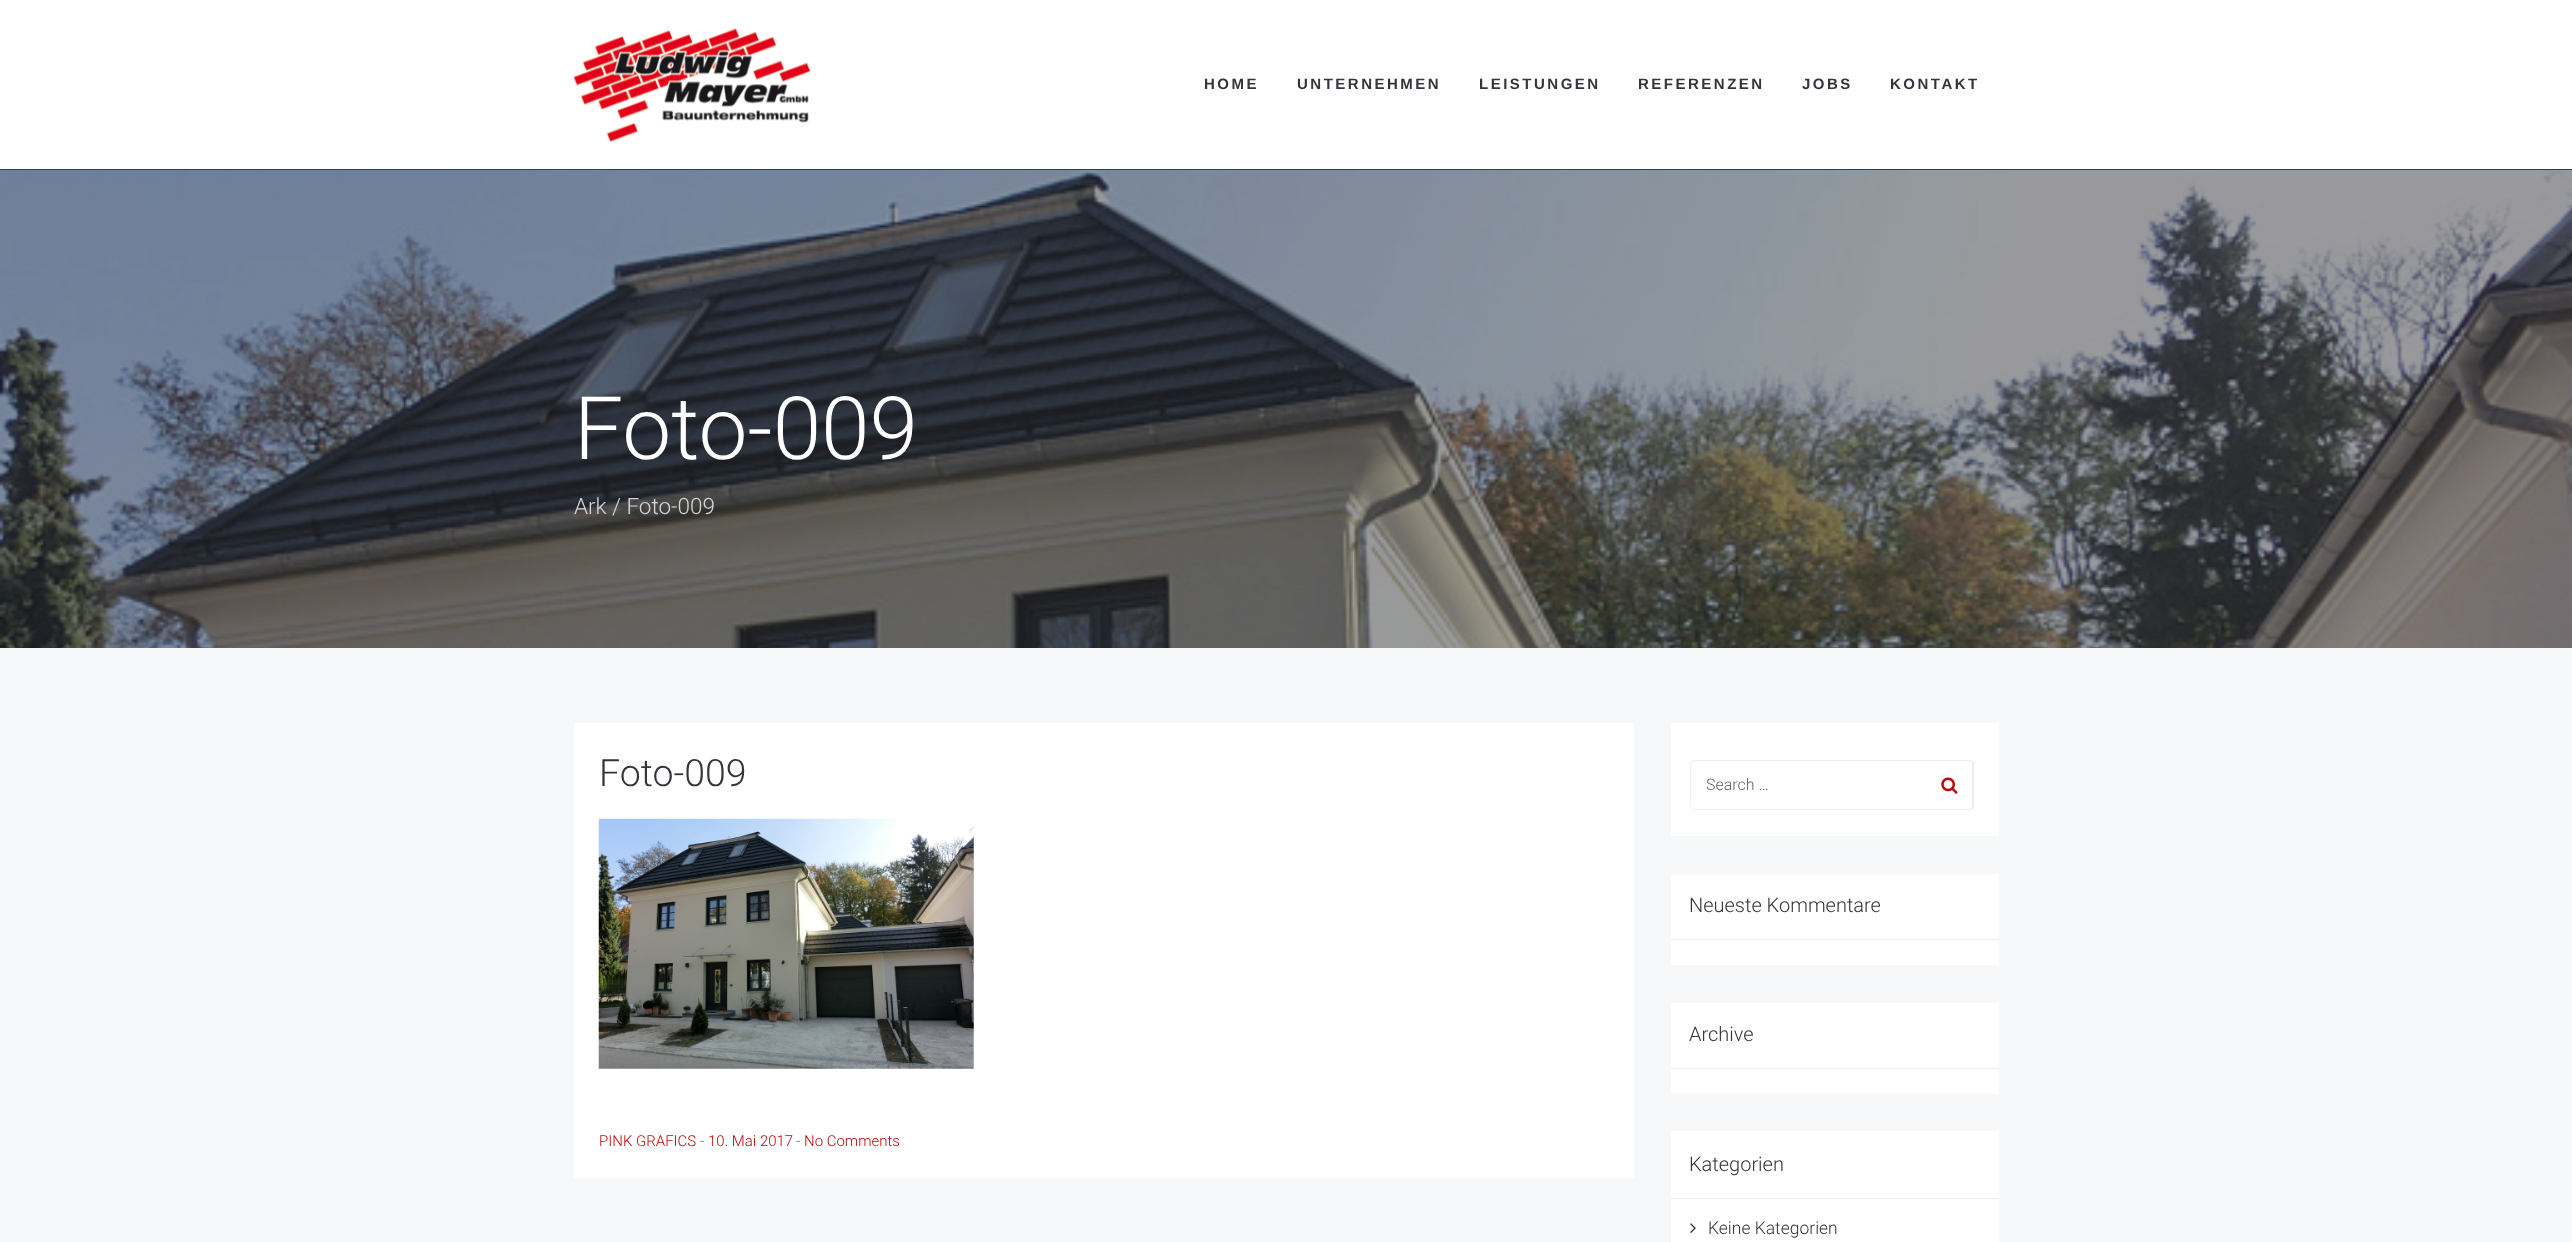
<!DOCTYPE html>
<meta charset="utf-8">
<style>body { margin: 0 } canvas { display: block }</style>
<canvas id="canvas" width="2572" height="1242"></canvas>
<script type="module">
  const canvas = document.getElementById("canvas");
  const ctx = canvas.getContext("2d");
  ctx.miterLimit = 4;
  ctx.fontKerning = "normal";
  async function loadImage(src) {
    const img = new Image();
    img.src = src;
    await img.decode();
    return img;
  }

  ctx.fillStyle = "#f7f8fa";
  ctx.fillRect(0, 0, 2572, 1242);
  ctx.fillStyle = "#ffffff";
  ctx.fillRect(0, 0, 2572, 169);
  ctx.fillStyle = "#bc0707";
  ctx.fillRect(0, 169, 2572, 1);
  ctx.drawImage(await loadImage("img1.png"), 573, 28, 237, 114);
  ctx.letterSpacing = "2.5px";
  ctx.font = "bold 15px Liberation Sans";
  ctx.fillStyle = "#34343c";
  ctx.fillText("HOME", 1204, 89);
  ctx.fillText("UNTERNEHMEN", 1297, 89);
  ctx.fillText("LEISTUNGEN", 1479, 89);
  ctx.fillText("REFERENZEN", 1638, 89);
  ctx.fillText("JOBS", 1802, 89);
  ctx.fillText("KONTAKT", 1890, 89);
  ctx.drawImage(await loadImage("img2.png"), 0, 170, 2572, 478);
  ctx.letterSpacing = "0px";
  ctx.font = "300 87.5px Roboto";
  ctx.fillStyle = "#ffffff";
  ctx.fillText("Foto-009", 574, 459);
  ctx.font = "300 22.5px Roboto";
  ctx.fillStyle = "#d7d7d8";
  ctx.fillText("Ark", 574, 514);
  ctx.fillText("/ Foto-009", 612, 514);
  ctx.fillStyle = "#ffffff";
  ctx.fillRect(574, 723, 1060, 455);
  ctx.font = "300 37.5px Roboto";
  ctx.fillStyle = "#34343c";
  ctx.fillText("Foto-009", 599, 786);
  ctx.drawImage(await loadImage("img3.png"), 598, 818, 376, 251);
  ctx.font = "300 15px Roboto";
  ctx.fillStyle = "#bc0707";
  ctx.fillText("PINK GRAFICS", 599, 1146);
  ctx.fillStyle = "#606060";
  ctx.fillText("-", 700, 1146);
  ctx.fillStyle = "#bc0707";
  ctx.fillText("10. Mai 2017", 708, 1146);
  ctx.fillStyle = "#606060";
  ctx.fillText("-", 796, 1146);
  ctx.fillStyle = "#bc0707";
  ctx.fillText("No Comments", 804, 1146);
  ctx.fillStyle = "#ffffff";
  ctx.fillRect(1671, 723, 328, 113);
  ctx.beginPath();
  ctx.roundRect(1690.5, 760.5, 237, 49, [4.5, 0, 0, 4.5]);
  ctx.strokeStyle = "#ebeef6";
  ctx.stroke();
  ctx.font = "300 16px Roboto";
  ctx.fillStyle = "#606060";
  ctx.fillText("Search …", 1706, 790);
  ctx.fillStyle = "#ffffff";
  ctx.beginPath();
  ctx.roundRect(1926, 760, 48, 50, [0, 5, 5, 0]);
  ctx.fill();
  ctx.fillStyle = "#ebeef6";
  ctx.beginPath();
  ctx.moveTo(1926, 760);
  ctx.lineTo(1969, 760);
  ctx.bezierCurveTo(1972, 760, 1974, 762, 1974, 765);
  ctx.lineTo(1974, 805);
  ctx.bezierCurveTo(1974, 808, 1972, 810, 1969, 810);
  ctx.lineTo(1926, 810);
  ctx.closePath();
  ctx.moveTo(1926, 761);
  ctx.lineTo(1969, 761);
  ctx.bezierCurveTo(1971, 761, 1972, 763, 1972, 765);
  ctx.lineTo(1972, 805);
  ctx.bezierCurveTo(1972, 807, 1971, 809, 1969, 809);
  ctx.lineTo(1926, 809);
  ctx.closePath();
  ctx.fill("evenodd");
  ctx.drawImage(await loadImage("img4.png"), 1941, 777, 17, 17);
  ctx.fillStyle = "#ffffff";
  ctx.fillRect(1671, 874, 328, 91);
  ctx.fillStyle = "#ebeef6";
  ctx.fillRect(1671, 939, 328, 1);
  ctx.font = "300 20px Roboto";
  ctx.fillStyle = "#34343c";
  ctx.fillText("Neueste Kommentare", 1689, 912);
  ctx.fillStyle = "#ffffff";
  ctx.fillRect(1671, 1003, 328, 91);
  ctx.fillStyle = "#ebeef6";
  ctx.fillRect(1671, 1068, 328, 1);
  ctx.fillStyle = "#34343c";
  ctx.fillText("Archive", 1689, 1041);
  ctx.fillStyle = "#ffffff";
  ctx.fillRect(1671, 1131, 328, 111);
  ctx.fillStyle = "#ebeef6";
  ctx.fillRect(1671, 1198, 328, 1);
  ctx.fillStyle = "#34343c";
  ctx.fillText("Kategorien", 1689, 1171);
  ctx.drawImage(await loadImage("img5.png"), 1690, 1223, 6, 10);
  ctx.font = "300 17.5px Roboto";
  ctx.fillText("Keine Kategorien", 1708, 1234);
</script>
